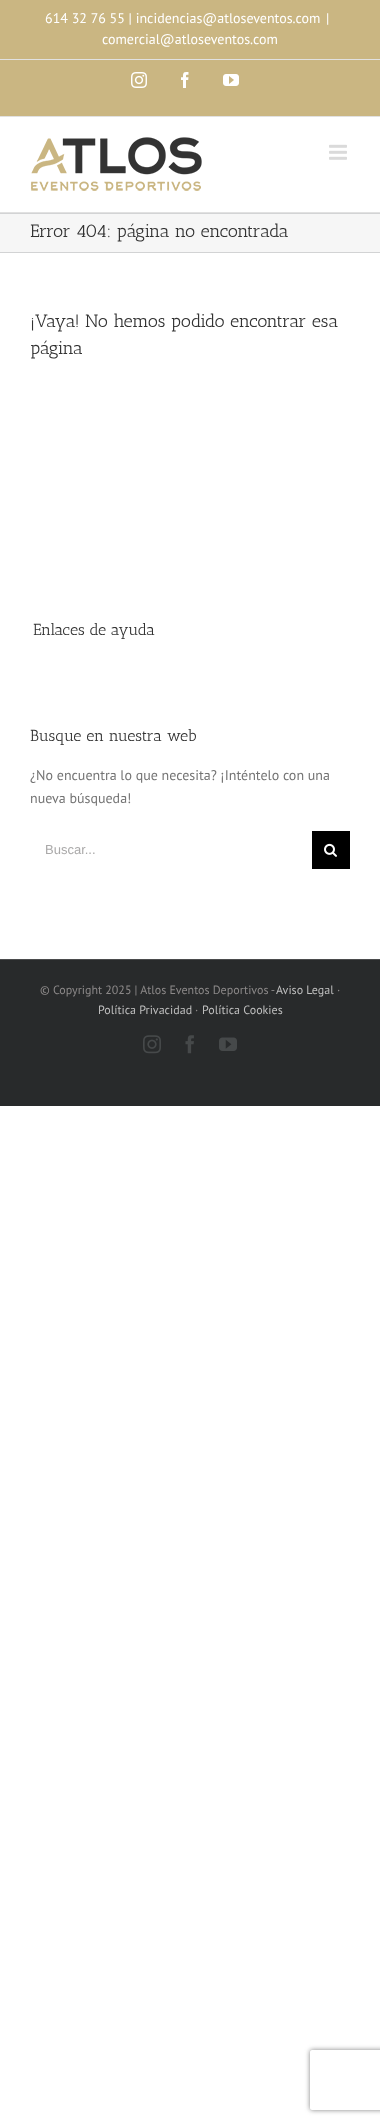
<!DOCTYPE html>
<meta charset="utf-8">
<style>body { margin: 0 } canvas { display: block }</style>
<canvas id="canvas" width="380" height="2124"></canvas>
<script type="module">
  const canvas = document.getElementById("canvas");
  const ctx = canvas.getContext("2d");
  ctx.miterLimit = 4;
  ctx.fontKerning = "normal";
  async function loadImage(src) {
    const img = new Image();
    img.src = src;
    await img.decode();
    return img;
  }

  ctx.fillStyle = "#ffffff";
  ctx.fillRect(0, 0, 380, 2124);
  ctx.fillStyle = "#cab682";
  ctx.fillRect(0, 0, 380, 116);
  ctx.fillStyle = "#e1e1e1";
  ctx.fillRect(0, 116, 380, 1);
  ctx.fillRect(0, 59, 380, 1);
  ctx.font = "14px PT Sans";
  ctx.fillStyle = "#ffffff";
  ctx.fillText("614 32 76 55 | incidencias@atloseventos.com", 45, 23);
  ctx.fillText("|", 326, 23);
  ctx.fillText("comercial@atloseventos.com", 102, 44);
  ctx.drawImage(await loadImage("img1.png"), 131, 72, 16, 16);
  ctx.drawImage(await loadImage("img2.png"), 181, 72, 8, 16);
  ctx.drawImage(await loadImage("img3.png"), 223, 74, 16, 12);
  ctx.fillStyle = "#e1e1e1";
  ctx.fillRect(0, 212, 380, 1);
  ctx.drawImage(await loadImage("img4.png"), 31, 137, 171, 54);
  ctx.drawImage(await loadImage("img5.png"), 329, 144, 18, 16);
  ctx.fillStyle = "#f6f6f6";
  ctx.fillRect(0, 214, 380, 38);
  ctx.fillStyle = "#d2d3d4";
  ctx.fillRect(0, 213, 380, 1);
  ctx.fillRect(0, 252, 380, 1);
  ctx.font = "18px Antic Slab";
  ctx.fillStyle = "#333333";
  ctx.fillText("Error 404: página no encontrada", 30, 237);
  ctx.fillText("¡Vaya! No hemos podido encontrar esa", 30, 327);
  ctx.fillText("página", 30, 354);
  ctx.font = "16px Antic Slab";
  ctx.fillText("Enlaces de ayuda", 33, 635);
  ctx.fillText("Busque en nuestra web", 30, 741);
  ctx.font = "14px PT Sans";
  ctx.fillStyle = "#747474";
  ctx.fillText("¿No encuentra lo que necesita? ¡Inténtelo con una", 30, 780);
  ctx.fillText("nueva búsqueda!", 30, 803);
  ctx.font = "13px Liberation Sans";
  ctx.fillStyle = "#aaa9a9";
  ctx.fillText("Buscar...", 45, 854);
  ctx.fillStyle = "#000000";
  ctx.fillRect(312, 831, 38, 38);
  ctx.drawImage(await loadImage("img6.png"), 324, 843, 13, 14);
  ctx.fillStyle = "#282a2b";
  ctx.fillRect(0, 960, 380, 146);
  ctx.fillStyle = "#4b4c4d";
  ctx.fillRect(0, 959, 380, 1);
  ctx.font = "12px PT Sans";
  ctx.fillStyle = "#8c8989";
  ctx.fillText("© Copyright 2025 | Atlos Eventos Deportivos -", 40, 994);
  ctx.fillStyle = "#bfbfbf";
  ctx.fillText("Aviso Legal", 276, 994);
  ctx.fillStyle = "#8c8989";
  ctx.fillText("·", 337, 994);
  ctx.fillStyle = "#bfbfbf";
  ctx.fillText("Política Privacidad", 98, 1014);
  ctx.fillStyle = "#8c8989";
  ctx.fillText("·", 195, 1014);
  ctx.fillStyle = "#bfbfbf";
  ctx.fillText("Política Cookies", 202, 1014);
  ctx.drawImage(await loadImage("img7.png"), 143, 1035, 18, 19);
  ctx.drawImage(await loadImage("img8.png"), 185, 1035, 9, 19);
  ctx.drawImage(await loadImage("img9.png"), 219, 1037, 18, 14);
  ctx.save();
  ctx.beginPath();
  ctx.moveTo(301, 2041);
  ctx.lineTo(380, 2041);
  ctx.lineTo(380, 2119);
  ctx.lineTo(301, 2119);
  ctx.closePath();
  ctx.moveTo(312, 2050);
  ctx.lineTo(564, 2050);
  ctx.bezierCurveTo(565, 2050, 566, 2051, 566, 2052);
  ctx.lineTo(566, 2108);
  ctx.bezierCurveTo(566, 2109, 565, 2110, 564, 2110);
  ctx.lineTo(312, 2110);
  ctx.bezierCurveTo(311, 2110, 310, 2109, 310, 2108);
  ctx.lineTo(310, 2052);
  ctx.bezierCurveTo(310, 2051, 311, 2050, 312, 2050);
  ctx.closePath();
  ctx.clip("evenodd");
  ctx.fillStyle = "#808080";
  ctx.filter = "blur(2.5px)";
  ctx.beginPath();
  ctx.roundRect(310, 2050, 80, 60, 2);
  ctx.fill();
  ctx.filter = "none";
  ctx.restore();
</script>
